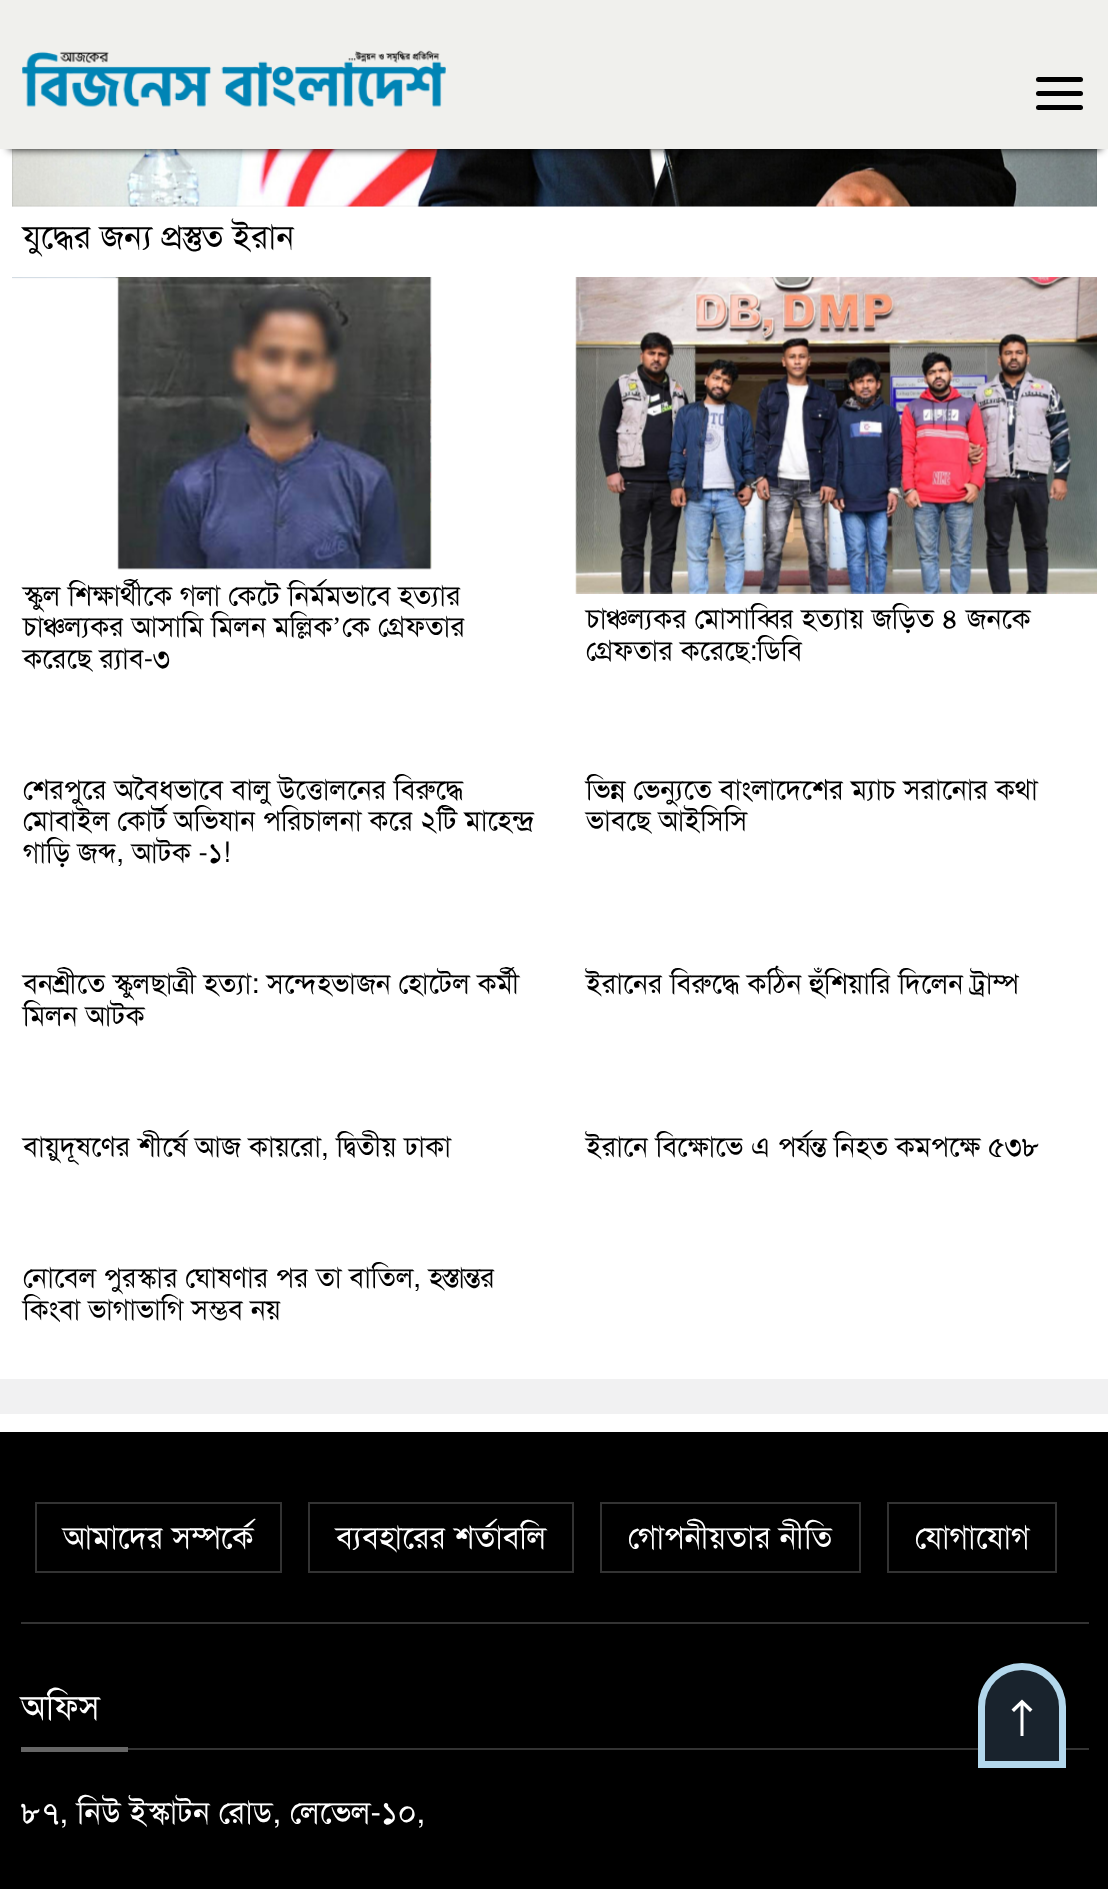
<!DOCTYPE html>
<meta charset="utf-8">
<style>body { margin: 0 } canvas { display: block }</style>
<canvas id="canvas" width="1108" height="1889"></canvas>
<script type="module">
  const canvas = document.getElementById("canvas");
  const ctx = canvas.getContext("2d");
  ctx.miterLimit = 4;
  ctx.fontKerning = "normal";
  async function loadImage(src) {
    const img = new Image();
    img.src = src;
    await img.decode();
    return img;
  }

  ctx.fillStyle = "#ffffff";
  ctx.fillRect(0, 0, 1108, 1889);
  ctx.drawImage(await loadImage("img2.png"), 12, 149, 1085, 58);
  ctx.fillStyle = "#000000";
  ctx.filter = "blur(4.5px)";
  ctx.beginPath();
  ctx.rect(9, 18, 1092, 131);
  ctx.fill();
  ctx.filter = "none";
  ctx.fillStyle = "#f0f0ed";
  ctx.fillRect(0, 0, 1108, 149);
  ctx.drawImage(await loadImage("img1.png"), 22, 50, 424, 57);
  ctx.fillStyle = "#000000";
  ctx.beginPath();
  ctx.roundRect(1036, 77, 47, 5, 2.5);
  ctx.fill();
  ctx.beginPath();
  ctx.roundRect(1036, 91, 47, 5, 2.5);
  ctx.fill();
  ctx.beginPath();
  ctx.roundRect(1036, 105, 47, 5, 2.5);
  ctx.fill();
  ctx.fillStyle = "#f1f1f2";
  ctx.fillRect(0, 1379, 1108, 35);
  ctx.font = "33.25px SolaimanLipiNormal";
  ctx.fillStyle = "#000000";
  ctx.fillText("যুদ্ধের জন্য প্রস্তুত ইরান", 23, 248);
  ctx.drawImage(await loadImage("img3.png"), 12, 277, 420, 293);
  ctx.font = "28px SolaimanLipiNormal";
  ctx.fillText("স্কুল শিক্ষার্থীকে গলা কেটে নির্মমভাবে হত্যার", 23, 605);
  ctx.fillText("চাঞ্চল্যকর আসামি মিলন মল্লিক", 23, 636);
  ctx.font = "28px Liberation Serif";
  ctx.fillText("’", 332, 636);
  ctx.font = "28px SolaimanLipiNormal";
  ctx.fillText("কে গ্রেফতার", 342, 636);
  ctx.fillText("করেছে র‍্যাব-৩", 23, 668);
  ctx.drawImage(await loadImage("img4.png"), 575, 277, 522, 317);
  ctx.fillText("চাঞ্চল্যকর মোসাব্বির হত্যায় জড়িত ৪ জনকে", 586, 628);
  ctx.fillText("গ্রেফতার করেছে:ডিবি", 586, 660);
  ctx.fillText("শেরপুরে অবৈধভাবে বালু উত্তোলনের বিরুদ্ধে", 23, 799);
  ctx.fillText("মোবাইল কোর্ট অভিযান পরিচালনা করে ২টি মাহেন্দ্র", 23, 830);
  ctx.fillText("গাড়ি জব্দ, আটক -১!", 23, 862);
  ctx.fillText("ভিন্ন ভেন্যুতে বাংলাদেশের ম্যাচ সরানোর কথা", 586, 799);
  ctx.fillText("ভাবছে আইসিসি", 586, 830);
  ctx.fillText("বনশ্রীতে স্কুলছাত্রী হত্যা: সন্দেহভাজন হোটেল কর্মী", 23, 993);
  ctx.fillText("মিলন আটক", 23, 1025);
  ctx.fillText("ইরানের বিরুদ্ধে কঠিন হুঁশিয়ারি দিলেন ট্রাম্প", 586, 993);
  ctx.fillText("বায়ুদূষণের শীর্ষে আজ কায়রো, দ্বিতীয় ঢাকা", 23, 1156);
  ctx.fillText("ইরানে বিক্ষোভে এ পর্যন্ত নিহত কমপক্ষে ৫৩৮", 586, 1156);
  ctx.fillText("নোবেল পুরস্কার ঘোষণার পর তা বাতিল, হস্তান্তর", 23, 1287);
  ctx.fillText("কিংবা ভাগাভাগি সম্ভব নয়", 23, 1319);
  ctx.fillRect(0, 1432, 1108, 457);
  ctx.fillStyle = "#333333";
  ctx.fillRect(21, 1622, 1068, 2);
  ctx.strokeStyle = "#333333";
  ctx.lineWidth = 2;
  ctx.strokeRect(36, 1503, 245, 69);
  ctx.font = "31.5px SolaimanLipiNormal";
  ctx.fillStyle = "#ffffff";
  ctx.fillText("আমাদের সম্পর্কে", 63, 1548);
  ctx.strokeRect(309, 1503, 264, 69);
  ctx.fillText("ব্যবহারের শর্তাবলি", 336, 1548);
  ctx.strokeRect(601, 1503, 259, 69);
  ctx.fillText("গোপনীয়তার নীতি", 628, 1548);
  ctx.strokeRect(888, 1503, 168, 69);
  ctx.fillText("যোগাযোগ", 915, 1548);
  ctx.fillStyle = "#333333";
  ctx.fillRect(128, 1748, 961, 2);
  ctx.font = "35px SolaimanLipiNormal";
  ctx.fillStyle = "#ffffff";
  ctx.fillText("অফিস", 21, 1719);
  ctx.fillStyle = "#666666";
  ctx.fillRect(21, 1747, 107, 5);
  ctx.font = "31.5px SolaimanLipiNormal";
  ctx.fillStyle = "#ffffff";
  ctx.fillText("৮৭, নিউ ইস্কাটন রোড, লেভেল-১০,", 21, 1823);
  ctx.fillStyle = "#b3d7ec";
  ctx.beginPath();
  ctx.roundRect(978, 1663, 88, 105, [44, 44, 0, 0]);
  ctx.fill();
  ctx.fillStyle = "#19232d";
  ctx.beginPath();
  ctx.roundRect(985, 1670, 74, 91, [37, 37, 0, 0]);
  ctx.fill();
  ctx.fillStyle = "#ffffff";
  ctx.beginPath();
  ctx.moveTo(1022, 1699.5);
  ctx.lineTo(1011.5, 1709.5);
  ctx.lineTo(1014, 1712);
  ctx.lineTo(1020.5, 1705.5);
  ctx.lineTo(1020.5, 1736);
  ctx.lineTo(1023.5, 1736);
  ctx.lineTo(1023.5, 1705.5);
  ctx.lineTo(1030, 1712);
  ctx.lineTo(1032.5, 1709.5);
  ctx.closePath();
  ctx.fill();
</script>
